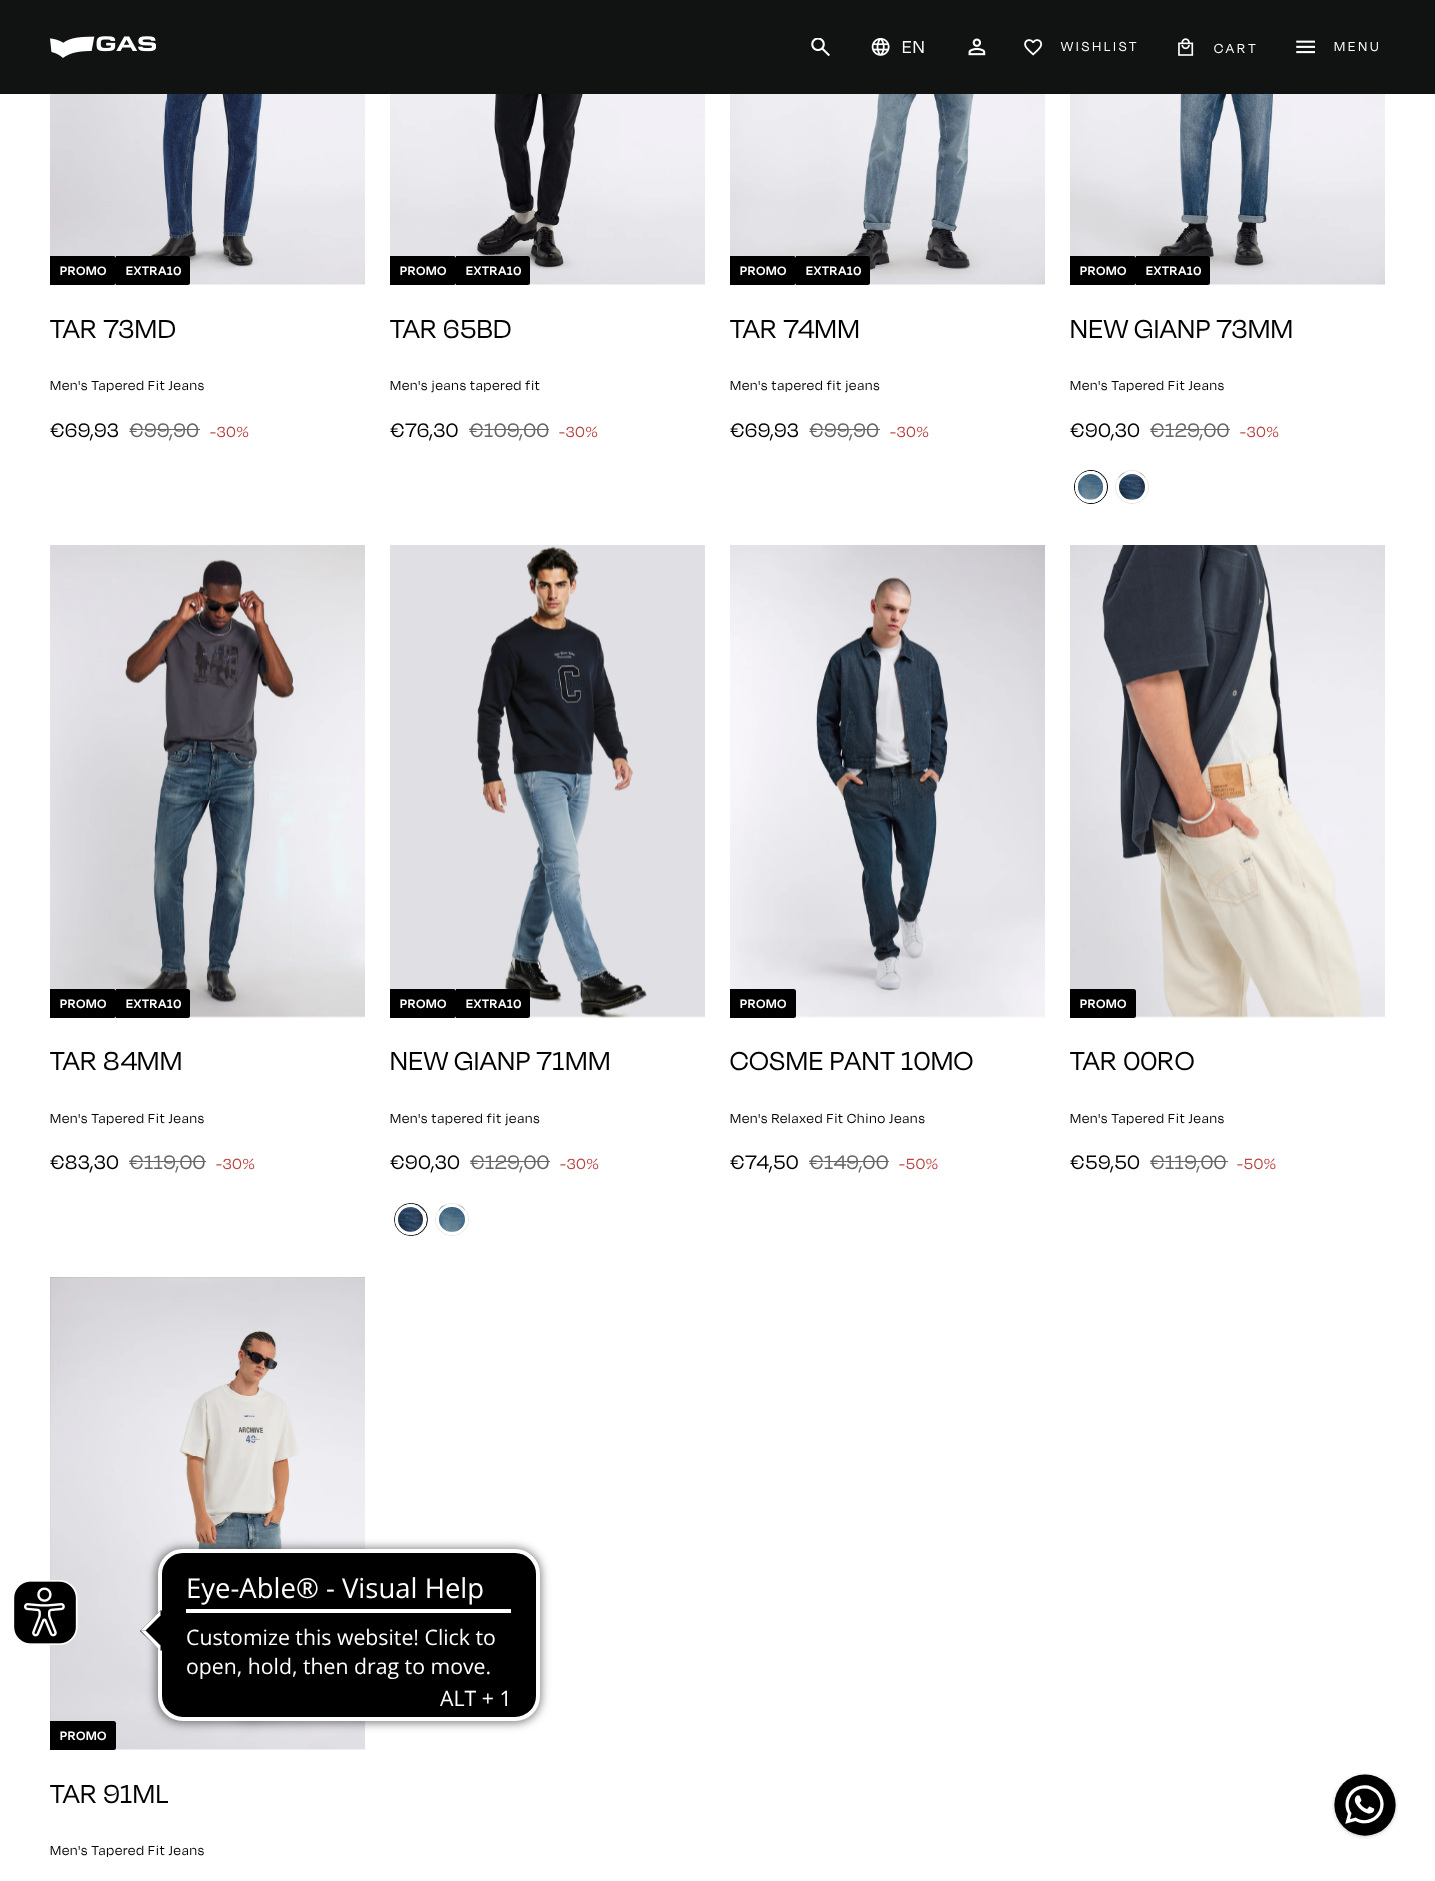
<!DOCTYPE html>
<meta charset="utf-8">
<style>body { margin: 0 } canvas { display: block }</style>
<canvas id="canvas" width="1435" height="1881"></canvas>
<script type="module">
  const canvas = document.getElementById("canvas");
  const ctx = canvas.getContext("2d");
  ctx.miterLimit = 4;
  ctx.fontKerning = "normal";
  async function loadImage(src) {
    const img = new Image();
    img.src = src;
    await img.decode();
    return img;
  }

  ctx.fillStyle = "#ffffff";
  ctx.fillRect(0, 0, 1435, 1881);
  ctx.fillStyle = "#111212";
  ctx.fillRect(0, 0, 1435, 94);
  ctx.drawImage(await loadImage("img1.png"), 50, 36, 106, 22);
  ctx.drawImage(await loadImage("img2.png"), 811, 38, 19, 18);
  ctx.drawImage(await loadImage("img3.png"), 871, 38, 19, 18);
  ctx.letterSpacing = "1px";
  ctx.font = "20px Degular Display";
  ctx.fillStyle = "#ffffff";
  ctx.fillText("EN", 902, 53);
  ctx.drawImage(await loadImage("img4.png"), 968, 38, 18, 18);
  ctx.drawImage(await loadImage("img5.png"), 1024, 39, 19, 17);
  ctx.letterSpacing = "3px";
  ctx.font = "15px Degular Display";
  ctx.fillText("WISHLIST", 1061, 51);
  ctx.drawImage(await loadImage("img6.png"), 1178, 38, 16, 18);
  ctx.fillText("CART", 1214, 53);
  ctx.drawImage(await loadImage("img7.png"), 1296, 40, 19, 14);
  ctx.fillText("MENU", 1334, 51);
  ctx.drawImage(await loadImage("img8.png"), 50, 94, 315, 191);
  ctx.fillStyle = "#000000";
  ctx.beginPath();
  ctx.roundRect(50, 256, 66, 29, [0, 2.5, 2.5, 0]);
  ctx.fill();
  ctx.letterSpacing = "0.75px";
  ctx.font = "600 14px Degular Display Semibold";
  ctx.fillStyle = "#ffffff";
  ctx.fillText("PROMO", 60, 275);
  ctx.fillStyle = "#000000";
  ctx.beginPath();
  ctx.roundRect(116, 256, 74, 29, [0, 2.5, 2.5, 0]);
  ctx.fill();
  ctx.fillStyle = "#ffffff";
  ctx.fillText("EXTRA10", 126, 275);
  ctx.letterSpacing = "0.95px";
  ctx.font = "30px Degular Display";
  ctx.fillStyle = "#000000";
  ctx.fillText("TAR 73MD", 50, 338);
  ctx.font = "15px Degular Display";
  ctx.fillText("Men's Tapered Fit Jeans", 50, 390);
  ctx.font = "22.5px Degular Display";
  ctx.fillText("€69,93", 50, 437);
  ctx.fillStyle = "#666666";
  ctx.fillText("€99,90", 129, 437);
  ctx.fillRect(130, 429, 70, 1);
  ctx.font = "17px Degular Display";
  ctx.fillStyle = "#ba4444";
  ctx.fillText("-30%", 210, 437);
  ctx.drawImage(await loadImage("img9.png"), 390, 94, 315, 191);
  ctx.fillStyle = "#000000";
  ctx.beginPath();
  ctx.roundRect(390, 256, 66, 29, [0, 2.5, 2.5, 0]);
  ctx.fill();
  ctx.letterSpacing = "0.75px";
  ctx.font = "600 14px Degular Display Semibold";
  ctx.fillStyle = "#ffffff";
  ctx.fillText("PROMO", 400, 275);
  ctx.fillStyle = "#000000";
  ctx.beginPath();
  ctx.roundRect(456, 256, 74, 29, [0, 2.5, 2.5, 0]);
  ctx.fill();
  ctx.fillStyle = "#ffffff";
  ctx.fillText("EXTRA10", 466, 275);
  ctx.letterSpacing = "0.95px";
  ctx.font = "30px Degular Display";
  ctx.fillStyle = "#000000";
  ctx.fillText("TAR 65BD", 390, 338);
  ctx.font = "15px Degular Display";
  ctx.fillText("Men's jeans tapered fit", 390, 390);
  ctx.font = "22.5px Degular Display";
  ctx.fillText("€76,30", 390, 437);
  ctx.fillStyle = "#666666";
  ctx.fillText("€109,00", 469, 437);
  ctx.fillRect(469, 429, 80, 1);
  ctx.font = "17px Degular Display";
  ctx.fillStyle = "#ba4444";
  ctx.fillText("-30%", 559, 437);
  ctx.drawImage(await loadImage("img10.png"), 730, 94, 315, 191);
  ctx.fillStyle = "#000000";
  ctx.beginPath();
  ctx.roundRect(730, 256, 66, 29, [0, 2.5, 2.5, 0]);
  ctx.fill();
  ctx.letterSpacing = "0.75px";
  ctx.font = "600 14px Degular Display Semibold";
  ctx.fillStyle = "#ffffff";
  ctx.fillText("PROMO", 740, 275);
  ctx.fillStyle = "#000000";
  ctx.beginPath();
  ctx.roundRect(796, 256, 74, 29, [0, 2.5, 2.5, 0]);
  ctx.fill();
  ctx.fillStyle = "#ffffff";
  ctx.fillText("EXTRA10", 806, 275);
  ctx.letterSpacing = "0.95px";
  ctx.font = "30px Degular Display";
  ctx.fillStyle = "#000000";
  ctx.fillText("TAR 74MM", 730, 338);
  ctx.font = "15px Degular Display";
  ctx.fillText("Men's tapered fit jeans", 730, 390);
  ctx.font = "22.5px Degular Display";
  ctx.fillText("€69,93", 730, 437);
  ctx.fillStyle = "#666666";
  ctx.fillText("€99,90", 809, 437);
  ctx.fillRect(810, 429, 70, 1);
  ctx.font = "17px Degular Display";
  ctx.fillStyle = "#ba4444";
  ctx.fillText("-30%", 890, 437);
  ctx.drawImage(await loadImage("img11.png"), 1070, 94, 315, 191);
  ctx.fillStyle = "#000000";
  ctx.beginPath();
  ctx.roundRect(1070, 256, 66, 29, [0, 2.5, 2.5, 0]);
  ctx.fill();
  ctx.letterSpacing = "0.75px";
  ctx.font = "600 14px Degular Display Semibold";
  ctx.fillStyle = "#ffffff";
  ctx.fillText("PROMO", 1080, 275);
  ctx.fillStyle = "#000000";
  ctx.beginPath();
  ctx.roundRect(1136, 256, 74, 29, [0, 2.5, 2.5, 0]);
  ctx.fill();
  ctx.fillStyle = "#ffffff";
  ctx.fillText("EXTRA10", 1146, 275);
  ctx.letterSpacing = "0.95px";
  ctx.font = "30px Degular Display";
  ctx.fillStyle = "#000000";
  ctx.fillText("NEW GIANP 73MM", 1070, 338);
  ctx.font = "15px Degular Display";
  ctx.fillText("Men's Tapered Fit Jeans", 1070, 390);
  ctx.font = "22.5px Degular Display";
  ctx.fillText("€90,30", 1070, 437);
  ctx.fillStyle = "#666666";
  ctx.fillText("€129,00", 1150, 437);
  ctx.fillRect(1150, 429, 80, 1);
  ctx.font = "17px Degular Display";
  ctx.fillStyle = "#ba4444";
  ctx.fillText("-30%", 1240, 437);
  ctx.beginPath();
  ctx.arc(1091, 487, 16.5, 0, Math.PI * 2);
  ctx.strokeStyle = "#000000";
  ctx.stroke();
  ctx.drawImage(await loadImage("img12.png"), 1077, 472, 27, 28);
  ctx.beginPath();
  ctx.roundRect(1076.5, 472.5, 28, 29, 14);
  ctx.strokeStyle = "#ffffff";
  ctx.lineWidth = 3;
  ctx.stroke();
  ctx.beginPath();
  ctx.arc(1132, 487, 16.5, 0, Math.PI * 2);
  ctx.strokeStyle = "#e8e8e1";
  ctx.lineWidth = 1;
  ctx.stroke();
  ctx.drawImage(await loadImage("img13.png"), 1118, 472, 27, 28);
  ctx.beginPath();
  ctx.arc(1132, 487, 14.5, 0, Math.PI * 2);
  ctx.strokeStyle = "#ffffff";
  ctx.lineWidth = 3;
  ctx.stroke();
  ctx.drawImage(await loadImage("img14.png"), 50, 545, 315, 473);
  ctx.fillStyle = "#000000";
  ctx.beginPath();
  ctx.roundRect(50, 989, 66, 29, [0, 2.5, 2.5, 0]);
  ctx.fill();
  ctx.letterSpacing = "0.75px";
  ctx.font = "600 14px Degular Display Semibold";
  ctx.fillStyle = "#ffffff";
  ctx.fillText("PROMO", 60, 1008);
  ctx.fillStyle = "#000000";
  ctx.beginPath();
  ctx.roundRect(116, 989, 74, 29, [0, 2.5, 2.5, 0]);
  ctx.fill();
  ctx.fillStyle = "#ffffff";
  ctx.fillText("EXTRA10", 126, 1008);
  ctx.letterSpacing = "0.95px";
  ctx.font = "30px Degular Display";
  ctx.fillStyle = "#000000";
  ctx.fillText("TAR 84MM", 50, 1070);
  ctx.font = "15px Degular Display";
  ctx.fillText("Men's Tapered Fit Jeans", 50, 1123);
  ctx.font = "22.5px Degular Display";
  ctx.fillText("€83,30", 50, 1169);
  ctx.fillStyle = "#666666";
  ctx.fillText("€119,00", 129, 1169);
  ctx.fillRect(129, 1161, 77, 1);
  ctx.font = "17px Degular Display";
  ctx.fillStyle = "#ba4444";
  ctx.fillText("-30%", 216, 1169);
  ctx.drawImage(await loadImage("img15.png"), 390, 545, 315, 473);
  ctx.fillStyle = "#000000";
  ctx.beginPath();
  ctx.roundRect(390, 989, 66, 29, [0, 2.5, 2.5, 0]);
  ctx.fill();
  ctx.letterSpacing = "0.75px";
  ctx.font = "600 14px Degular Display Semibold";
  ctx.fillStyle = "#ffffff";
  ctx.fillText("PROMO", 400, 1008);
  ctx.fillStyle = "#000000";
  ctx.beginPath();
  ctx.roundRect(456, 989, 74, 29, [0, 2.5, 2.5, 0]);
  ctx.fill();
  ctx.fillStyle = "#ffffff";
  ctx.fillText("EXTRA10", 466, 1008);
  ctx.letterSpacing = "0.95px";
  ctx.font = "30px Degular Display";
  ctx.fillStyle = "#000000";
  ctx.fillText("NEW GIANP 71MM", 390, 1070);
  ctx.font = "15px Degular Display";
  ctx.fillText("Men's tapered fit jeans", 390, 1123);
  ctx.font = "22.5px Degular Display";
  ctx.fillText("€90,30", 390, 1169);
  ctx.fillStyle = "#666666";
  ctx.fillText("€129,00", 470, 1169);
  ctx.fillRect(470, 1161, 80, 1);
  ctx.font = "17px Degular Display";
  ctx.fillStyle = "#ba4444";
  ctx.fillText("-30%", 560, 1169);
  ctx.beginPath();
  ctx.roundRect(394.5, 1203.5, 33, 32, 16);
  ctx.strokeStyle = "#000000";
  ctx.lineWidth = 1;
  ctx.stroke();
  ctx.drawImage(await loadImage("img16.png"), 397, 1205, 27, 28);
  ctx.beginPath();
  ctx.arc(410.5, 1219.5, 14, 0, Math.PI * 2);
  ctx.strokeStyle = "#ffffff";
  ctx.lineWidth = 3;
  ctx.stroke();
  ctx.beginPath();
  ctx.roundRect(435.5, 1203.5, 33, 32, 16);
  ctx.strokeStyle = "#e8e8e1";
  ctx.lineWidth = 1;
  ctx.stroke();
  ctx.drawImage(await loadImage("img17.png"), 438, 1205, 27, 28);
  ctx.beginPath();
  ctx.roundRect(437.5, 1205.5, 29, 28, 14);
  ctx.strokeStyle = "#ffffff";
  ctx.lineWidth = 3;
  ctx.stroke();
  ctx.drawImage(await loadImage("img18.png"), 730, 545, 315, 473);
  ctx.fillStyle = "#000000";
  ctx.beginPath();
  ctx.roundRect(730, 989, 66, 29, [0, 2.5, 2.5, 0]);
  ctx.fill();
  ctx.letterSpacing = "0.75px";
  ctx.font = "600 14px Degular Display Semibold";
  ctx.fillStyle = "#ffffff";
  ctx.fillText("PROMO", 740, 1008);
  ctx.letterSpacing = "0.95px";
  ctx.font = "30px Degular Display";
  ctx.fillStyle = "#000000";
  ctx.fillText("COSME PANT 10MO", 730, 1070);
  ctx.font = "15px Degular Display";
  ctx.fillText("Men's Relaxed Fit Chino Jeans", 730, 1123);
  ctx.font = "22.5px Degular Display";
  ctx.fillText("€74,50", 730, 1169);
  ctx.fillStyle = "#666666";
  ctx.fillText("€149,00", 809, 1169);
  ctx.fillRect(809, 1161, 80, 1);
  ctx.font = "17px Degular Display";
  ctx.fillStyle = "#ba4444";
  ctx.fillText("-50%", 899, 1169);
  ctx.drawImage(await loadImage("img19.png"), 1070, 545, 315, 473);
  ctx.fillStyle = "#000000";
  ctx.beginPath();
  ctx.roundRect(1070, 989, 66, 29, [0, 2.5, 2.5, 0]);
  ctx.fill();
  ctx.letterSpacing = "0.75px";
  ctx.font = "600 14px Degular Display Semibold";
  ctx.fillStyle = "#ffffff";
  ctx.fillText("PROMO", 1080, 1008);
  ctx.letterSpacing = "0.95px";
  ctx.font = "30px Degular Display";
  ctx.fillStyle = "#000000";
  ctx.fillText("TAR 00RO", 1070, 1070);
  ctx.font = "15px Degular Display";
  ctx.fillText("Men's Tapered Fit Jeans", 1070, 1123);
  ctx.font = "22.5px Degular Display";
  ctx.fillText("€59,50", 1070, 1169);
  ctx.fillStyle = "#666666";
  ctx.fillText("€119,00", 1150, 1169);
  ctx.fillRect(1150, 1161, 78, 1);
  ctx.font = "17px Degular Display";
  ctx.fillStyle = "#ba4444";
  ctx.fillText("-50%", 1237, 1169);
  ctx.drawImage(await loadImage("img20.png"), 50, 1277, 315, 473);
  ctx.fillStyle = "#000000";
  ctx.beginPath();
  ctx.roundRect(50, 1721, 66, 29, [0, 2.5, 2.5, 0]);
  ctx.fill();
  ctx.letterSpacing = "0.75px";
  ctx.font = "600 14px Degular Display Semibold";
  ctx.fillStyle = "#ffffff";
  ctx.fillText("PROMO", 60, 1740);
  ctx.letterSpacing = "0.95px";
  ctx.font = "30px Degular Display";
  ctx.fillStyle = "#000000";
  ctx.fillText("TAR 91ML", 50, 1803);
  ctx.font = "15px Degular Display";
  ctx.fillText("Men's Tapered Fit Jeans", 50, 1855);
  ctx.drawImage(await loadImage("img21.png"), 14, 1580, 64, 65);
  ctx.fillStyle = "rgba(0, 0, 0, 0.5)";
  ctx.filter = "blur(5px)";
  ctx.beginPath();
  ctx.roundRect(156, 1548, 385, 175, 26);
  ctx.fill();
  ctx.filter = "none";
  ctx.fillStyle = "#000000";
  ctx.beginPath();
  ctx.roundRect(160, 1551, 378, 168, 23);
  ctx.fill();
  ctx.lineWidth = 4;
  ctx.stroke();
  ctx.fillStyle = "#ffffff";
  ctx.fillRect(186, 1609, 325, 4);
  ctx.letterSpacing = "0px";
  ctx.font = "27.5px Open Sans";
  ctx.fillText("Eye-Able® - Visual Help", 186, 1598);
  ctx.fillStyle = "#000000";
  ctx.beginPath();
  ctx.moveTo(161, 1651);
  ctx.lineTo(140, 1631);
  ctx.lineTo(161, 1610);
  ctx.lineTo(181, 1631);
  ctx.closePath();
  ctx.fill();
  ctx.fillStyle = "#ffffff";
  ctx.beginPath();
  ctx.moveTo(160.5, 1651);
  ctx.lineTo(140.5, 1630.5);
  ctx.lineTo(145.5, 1630.5);
  ctx.lineTo(160.5, 1645.5);
  ctx.closePath();
  ctx.fill();
  ctx.beginPath();
  ctx.moveTo(140.5, 1630.5);
  ctx.lineTo(160.5, 1610.5);
  ctx.lineTo(160.5, 1615.5);
  ctx.lineTo(145.5, 1630.5);
  ctx.closePath();
  ctx.fill();
  ctx.font = "21.25px Open Sans";
  ctx.fillText("Customize this website! Click to", 186, 1645);
  ctx.fillText("open, hold, then drag to move.", 186, 1674);
  ctx.fillText("ALT + 1", 440, 1706);
  ctx.drawImage(await loadImage("img22.png"), 1332, 1773, 66, 66);
</script>
